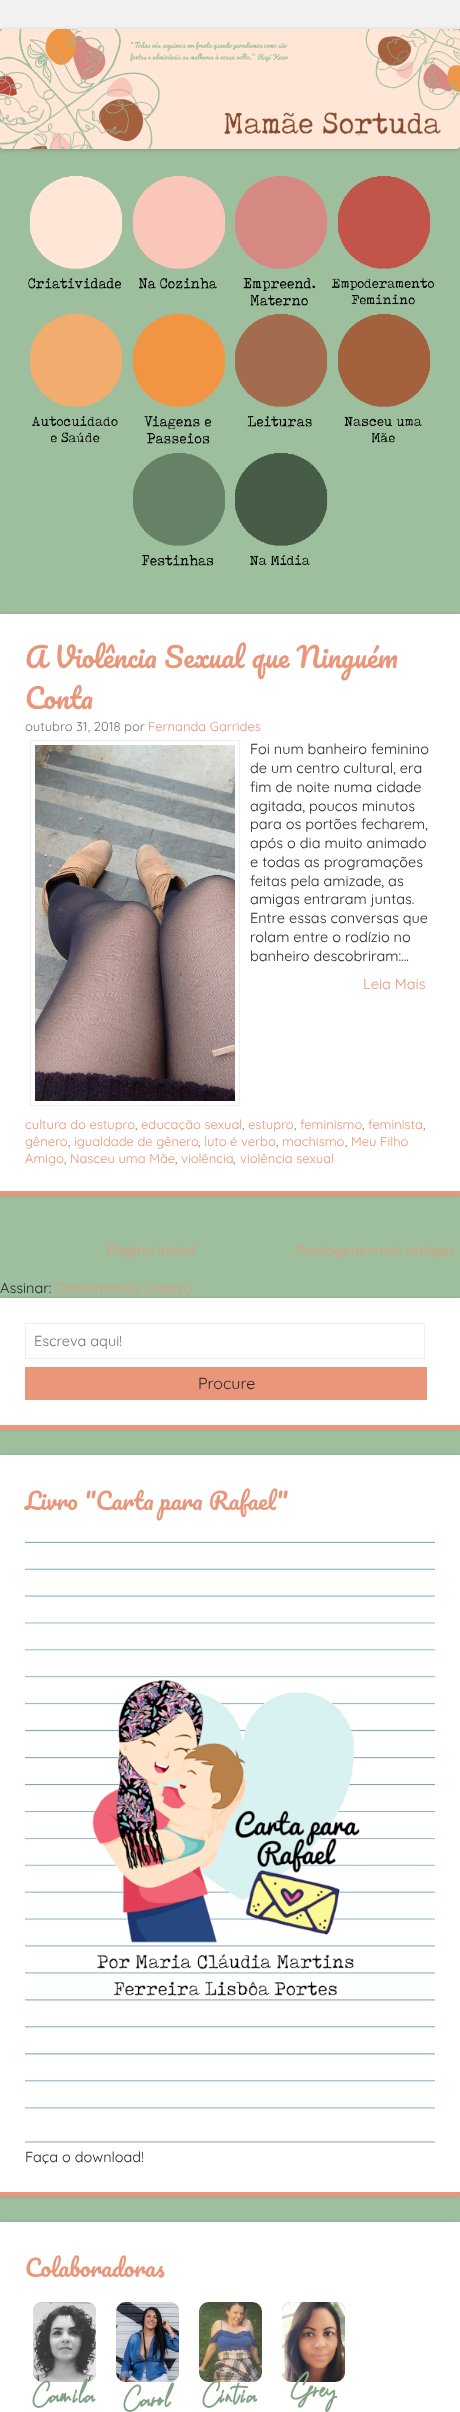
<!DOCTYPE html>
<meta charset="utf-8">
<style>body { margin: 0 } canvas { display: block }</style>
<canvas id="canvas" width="460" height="2412"></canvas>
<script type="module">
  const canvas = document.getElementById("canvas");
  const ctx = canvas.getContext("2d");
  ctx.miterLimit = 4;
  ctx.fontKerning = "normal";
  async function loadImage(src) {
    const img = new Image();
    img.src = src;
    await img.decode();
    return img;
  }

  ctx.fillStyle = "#9dbf9e";
  ctx.fillRect(0, 0, 460, 2412);
  ctx.fillStyle = "#f2f2f2";
  ctx.fillRect(0, 0, 460, 29);
  ctx.fillStyle = "rgba(0, 0, 0, 0.2)";
  ctx.filter = "blur(2px)";
  ctx.beginPath();
  ctx.roundRect(0, 30, 460, 120, 4);
  ctx.fill();
  ctx.filter = "none";
  ctx.drawImage(await loadImage("img1.png"), 0, 29, 460, 120);
  ctx.drawImage(await loadImage("img2.png"), 28, 176, 95, 114);
  ctx.drawImage(await loadImage("img3.png"), 133, 176, 93, 114);
  ctx.drawImage(await loadImage("img4.png"), 235, 176, 92, 131);
  ctx.drawImage(await loadImage("img5.png"), 331, 176, 103, 129);
  ctx.drawImage(await loadImage("img6.png"), 30, 314, 93, 129);
  ctx.drawImage(await loadImage("img7.png"), 133, 314, 93, 131);
  ctx.drawImage(await loadImage("img8.png"), 235, 314, 93, 114);
  ctx.drawImage(await loadImage("img9.png"), 338, 314, 93, 129);
  ctx.drawImage(await loadImage("img10.png"), 133, 453, 92, 114);
  ctx.drawImage(await loadImage("img11.png"), 235, 453, 93, 113);
  ctx.fillStyle = "rgba(100, 100, 100, 0.25)";
  ctx.filter = "blur(1.5px)";
  ctx.beginPath();
  ctx.rect(0, 614, 460, 582);
  ctx.fill();
  ctx.filter = "none";
  ctx.fillStyle = "#ffffff";
  ctx.fillRect(0, 614, 460, 577);
  ctx.fillStyle = "#e9967a";
  ctx.fillRect(0, 1191, 460, 5);
  ctx.font = "27.5px Pacifico";
  ctx.fillText("A Violência Sexual que Ninguém", 25, 668);
  ctx.fillText("Conta", 25, 709);
  ctx.font = "300 13px Quicksand";
  ctx.fillStyle = "#737373";
  ctx.fillText("outubro 31, 2018 por", 25, 731);
  ctx.fillStyle = "#e9967a";
  ctx.fillText("Fernanda Garrides", 148, 731);
  ctx.strokeStyle = "#eeeeee";
  ctx.strokeRect(30.5, 740.5, 209, 365);
  ctx.drawImage(await loadImage("img12.png"), 35, 745, 200, 356);
  ctx.font = "300 14.5px Quicksand";
  ctx.fillStyle = "#262626";
  ctx.fillText("Foi num banheiro feminino", 250, 754);
  ctx.fillText("de um centro cultural, era", 250, 773);
  ctx.fillText("fim de noite numa cidade", 250, 792);
  ctx.fillText("agitada, poucos minutos", 250, 811);
  ctx.fillText("para os portões fecharem,", 250, 829);
  ctx.fillText("após o dia muito animado", 250, 848);
  ctx.fillText("e todas as programações", 250, 867);
  ctx.fillText("feitas pela amizade, as", 250, 886);
  ctx.fillText("amigas entraram juntas.", 250, 904);
  ctx.fillText("Entre essas conversas que", 250, 923);
  ctx.fillText("rolam entre o rodízio no", 250, 942);
  ctx.fillText("banheiro descobriram:...", 250, 961);
  ctx.fillStyle = "#e9967a";
  ctx.fillText("Leia Mais", 363, 989);
  ctx.font = "300 13px Quicksand";
  ctx.fillText("cultura do estupro", 25, 1129);
  ctx.fillStyle = "#737373";
  ctx.fillText(",", 135, 1129);
  ctx.fillStyle = "#e9967a";
  ctx.fillText("educação sexual", 141, 1129);
  ctx.fillStyle = "#737373";
  ctx.fillText(",", 242, 1129);
  ctx.fillStyle = "#e9967a";
  ctx.fillText("estupro", 248, 1129);
  ctx.fillStyle = "#737373";
  ctx.fillText(",", 294, 1129);
  ctx.fillStyle = "#e9967a";
  ctx.fillText("feminismo", 300, 1129);
  ctx.fillStyle = "#737373";
  ctx.fillText(",", 362, 1129);
  ctx.fillStyle = "#e9967a";
  ctx.fillText("feminista", 368, 1129);
  ctx.fillStyle = "#737373";
  ctx.fillText(",", 423, 1129);
  ctx.fillStyle = "#e9967a";
  ctx.fillText("gênero", 25, 1146);
  ctx.fillStyle = "#737373";
  ctx.fillText(",", 68, 1146);
  ctx.fillStyle = "#e9967a";
  ctx.fillText("igualdade de gênero", 74, 1146);
  ctx.fillStyle = "#737373";
  ctx.fillText(",", 198, 1146);
  ctx.fillStyle = "#e9967a";
  ctx.fillText("luto é verbo", 204, 1146);
  ctx.fillStyle = "#737373";
  ctx.fillText(",", 276, 1146);
  ctx.fillStyle = "#e9967a";
  ctx.fillText("machismo", 282, 1146);
  ctx.fillStyle = "#737373";
  ctx.fillText(",", 345, 1146);
  ctx.fillStyle = "#e9967a";
  ctx.fillText("Meu Filho", 351, 1146);
  ctx.fillText("Amigo", 25, 1163);
  ctx.fillStyle = "#737373";
  ctx.fillText(",", 64, 1163);
  ctx.fillStyle = "#e9967a";
  ctx.fillText("Nasceu uma Mãe", 70, 1163);
  ctx.fillStyle = "#737373";
  ctx.fillText(",", 175, 1163);
  ctx.fillStyle = "#e9967a";
  ctx.fillText("violência", 181, 1163);
  ctx.fillStyle = "#737373";
  ctx.fillText(",", 233, 1163);
  ctx.fillStyle = "#e9967a";
  ctx.fillText("violência sexual", 240, 1163);
  ctx.font = "300 14.5px Quicksand";
  ctx.fillText("Página inicial", 107, 1255);
  ctx.fillText("Postagens mais antigas", 296, 1255);
  ctx.fillStyle = "#262626";
  ctx.fillText("Assinar:", 0, 1293);
  ctx.fillStyle = "#e9967a";
  ctx.fillText("Comentários (Atom)", 55, 1293);
  ctx.fillStyle = "rgba(100, 100, 100, 0.25)";
  ctx.filter = "blur(1.5px)";
  ctx.beginPath();
  ctx.rect(0, 1298, 460, 132);
  ctx.fill();
  ctx.filter = "none";
  ctx.fillStyle = "#ffffff";
  ctx.fillRect(0, 1298, 460, 127);
  ctx.fillStyle = "#e9967a";
  ctx.fillRect(0, 1425, 460, 5);
  ctx.strokeRect(25.5, 1323.5, 399, 35);
  ctx.fillStyle = "#737373";
  ctx.fillText("Escreva aqui!", 34, 1346);
  ctx.fillStyle = "#e9967a";
  ctx.fillRect(25, 1367, 402, 33);
  ctx.font = "300 16px Quicksand";
  ctx.fillStyle = "#262626";
  ctx.fillText("Procure", 198, 1389);
  ctx.fillStyle = "rgba(100, 100, 100, 0.25)";
  ctx.filter = "blur(1.5px)";
  ctx.beginPath();
  ctx.rect(0, 1455, 460, 742);
  ctx.fill();
  ctx.filter = "none";
  ctx.fillStyle = "#ffffff";
  ctx.fillRect(0, 1455, 460, 737);
  ctx.fillStyle = "#e9967a";
  ctx.fillRect(0, 2192, 460, 5);
  ctx.font = "23.1px Pacifico";
  ctx.fillText("Livro \"Carta para Rafael\"", 25, 1510);
  ctx.drawImage(await loadImage("img13.png"), 25, 1541, 410, 602);
  ctx.font = "300 14.5px Quicksand";
  ctx.fillStyle = "#262626";
  ctx.fillText("Faça o download!", 25, 2162);
  ctx.fillStyle = "rgba(100, 100, 100, 0.25)";
  ctx.filter = "blur(1.5px)";
  ctx.beginPath();
  ctx.rect(0, 2222, 460, 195);
  ctx.fill();
  ctx.filter = "none";
  ctx.fillStyle = "#ffffff";
  ctx.fillRect(0, 2222, 460, 190);
  ctx.font = "23.1px Pacifico";
  ctx.fillStyle = "#e9967a";
  ctx.fillText("Colaboradoras", 25, 2277);
  ctx.drawImage(await loadImage("img14.png"), 32, 2302, 64, 106);
  ctx.drawImage(await loadImage("img15.png"), 116, 2302, 63, 110);
  ctx.drawImage(await loadImage("img16.png"), 199, 2302, 63, 106);
  ctx.drawImage(await loadImage("img17.png"), 282, 2302, 63, 110);
</script>
